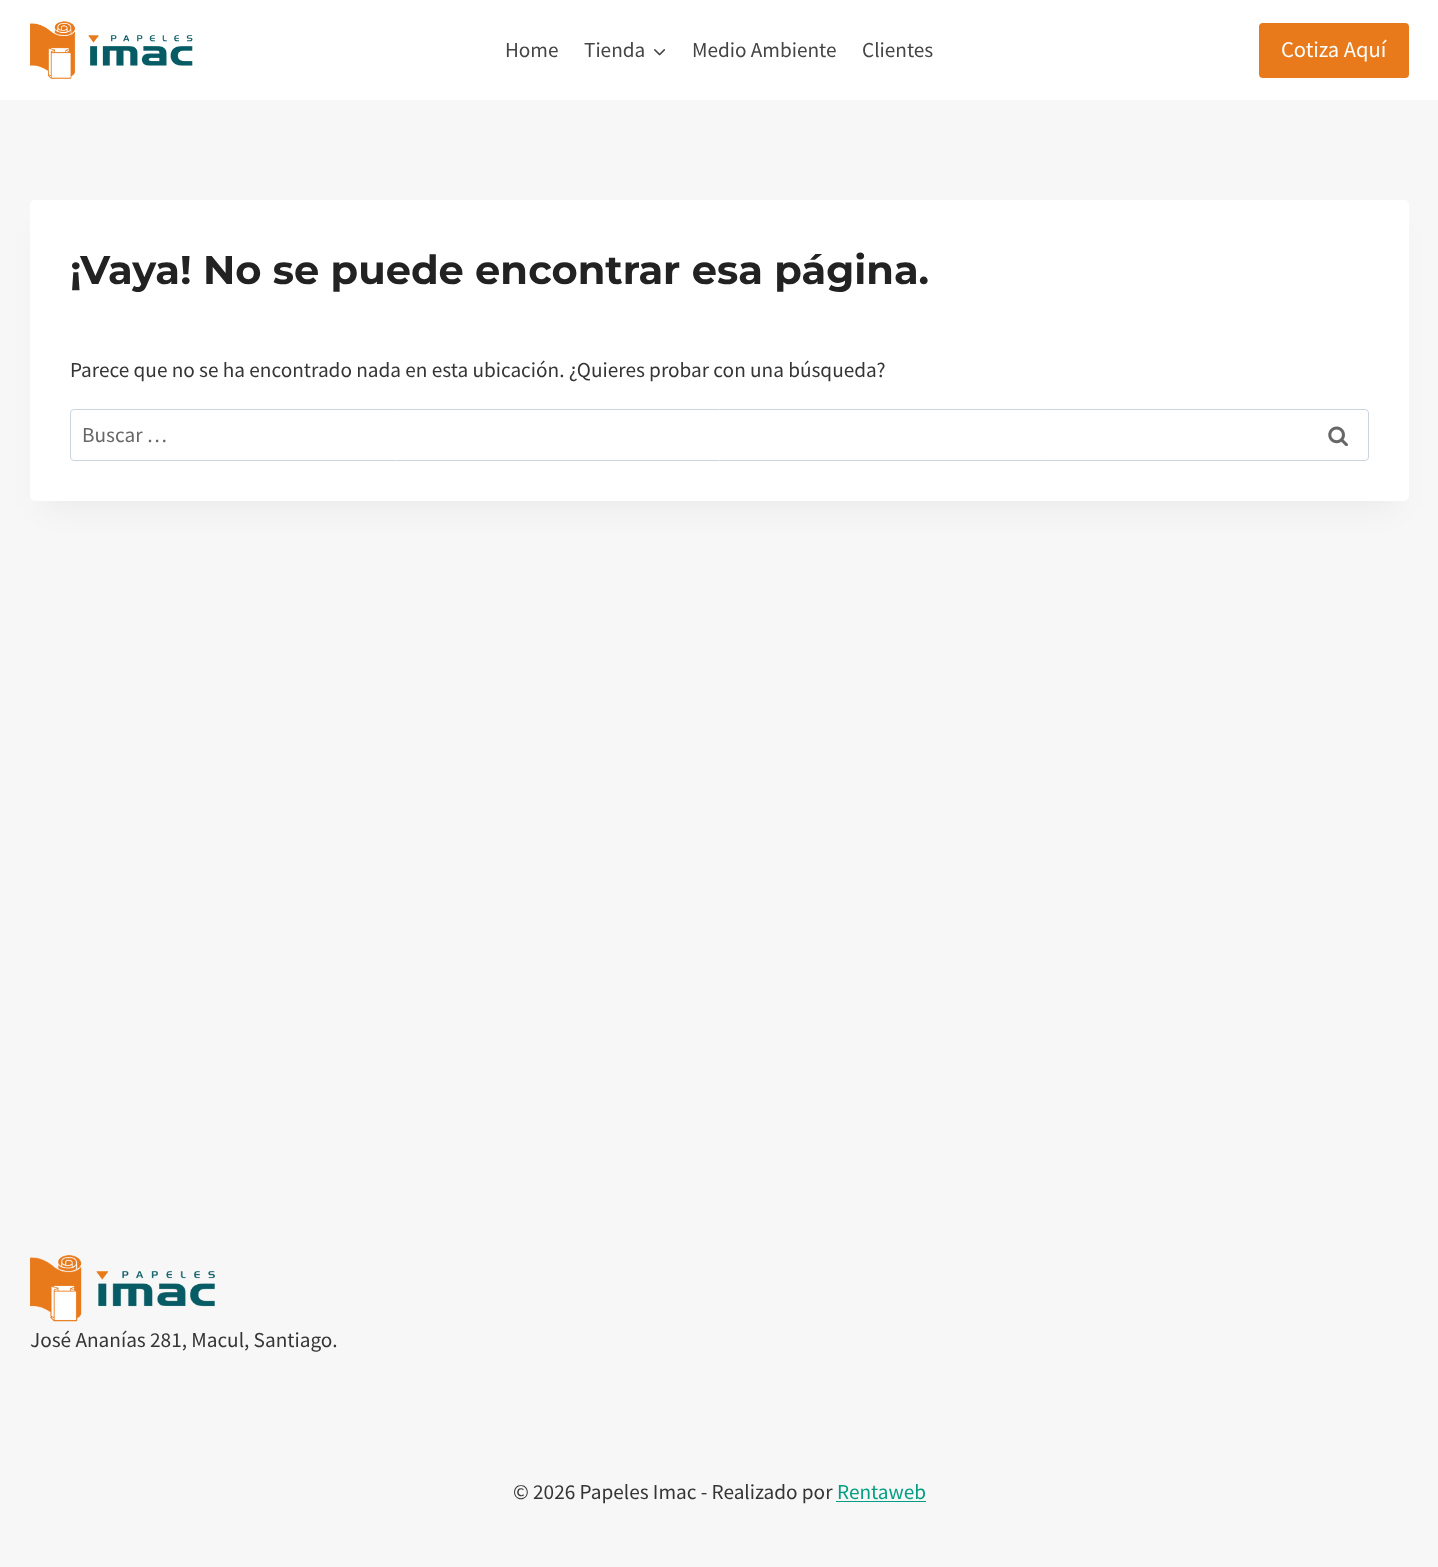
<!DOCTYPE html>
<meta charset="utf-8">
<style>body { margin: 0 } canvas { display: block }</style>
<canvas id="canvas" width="1438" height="1567"></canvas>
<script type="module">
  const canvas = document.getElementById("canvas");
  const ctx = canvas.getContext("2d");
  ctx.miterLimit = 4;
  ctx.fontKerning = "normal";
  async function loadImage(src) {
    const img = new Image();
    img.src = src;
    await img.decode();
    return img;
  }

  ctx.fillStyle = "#f7f7f7";
  ctx.fillRect(0, 0, 1438, 1567);
  ctx.fillStyle = "#ffffff";
  ctx.fillRect(0, 0, 1438, 100);
  ctx.drawImage(await loadImage("img1.png"), 30, 21, 163, 58);
  ctx.font = "21.25px Source Sans Pro";
  ctx.fillStyle = "#454545";
  ctx.fillText("Home", 505, 57);
  ctx.fillText("Tienda", 584, 57);
  ctx.drawImage(await loadImage("img2.png"), 654, 49, 12, 7);
  ctx.fillText("Medio Ambiente", 692, 57);
  ctx.fillText("Clientes", 862, 57);
  ctx.fillStyle = "#e87a1b";
  ctx.beginPath();
  ctx.roundRect(1259, 23, 150, 55, 4);
  ctx.fill();
  ctx.font = "22.5px Source Sans Pro";
  ctx.fillStyle = "#fdfdfd";
  ctx.fillText("Cotiza Aquí", 1281, 57);
  ctx.fillStyle = "rgba(0, 0, 0, 0.05)";
  ctx.filter = "blur(15.5px)";
  ctx.beginPath();
  ctx.rect(43, 231, 1353, 277);
  ctx.fill();
  ctx.filter = "none";
  ctx.fillStyle = "#ffffff";
  ctx.beginPath();
  ctx.roundRect(30, 200, 1379, 301, 5);
  ctx.fill();
  ctx.font = "100 40px Montserrat";
  ctx.fillStyle = "#222222";
  ctx.fillText("¡Vaya! No se puede encontrar esa página.", 70, 284);
  ctx.font = "21.25px Source Sans Pro";
  ctx.fillStyle = "#353535";
  ctx.fillText("Parece que no se ha encontrado nada en esta ubicación. ¿Quieres probar con una búsqueda?", 70, 377);
  ctx.beginPath();
  ctx.roundRect(70.5, 409.5, 1298, 51, 3.5);
  ctx.strokeStyle = "#cbd5e0";
  ctx.stroke();
  ctx.fillStyle = "#676767";
  ctx.fillText("Buscar …", 82, 442);
  ctx.drawImage(await loadImage("img3.png"), 1328, 426, 20, 20);
  ctx.drawImage(await loadImage("img4.png"), 30, 1255, 185, 67);
  ctx.fillStyle = "#353535";
  ctx.fillText("José Ananías 281, Macul, Santiago.", 30, 1347);
  ctx.fillText("© 2026 Papeles Imac - Realizado por", 513, 1499);
  ctx.fillStyle = "#049f82";
  ctx.fillText("Rentaweb", 837, 1499);
  ctx.fillRect(836, 1501, 90, 1);
</script>
